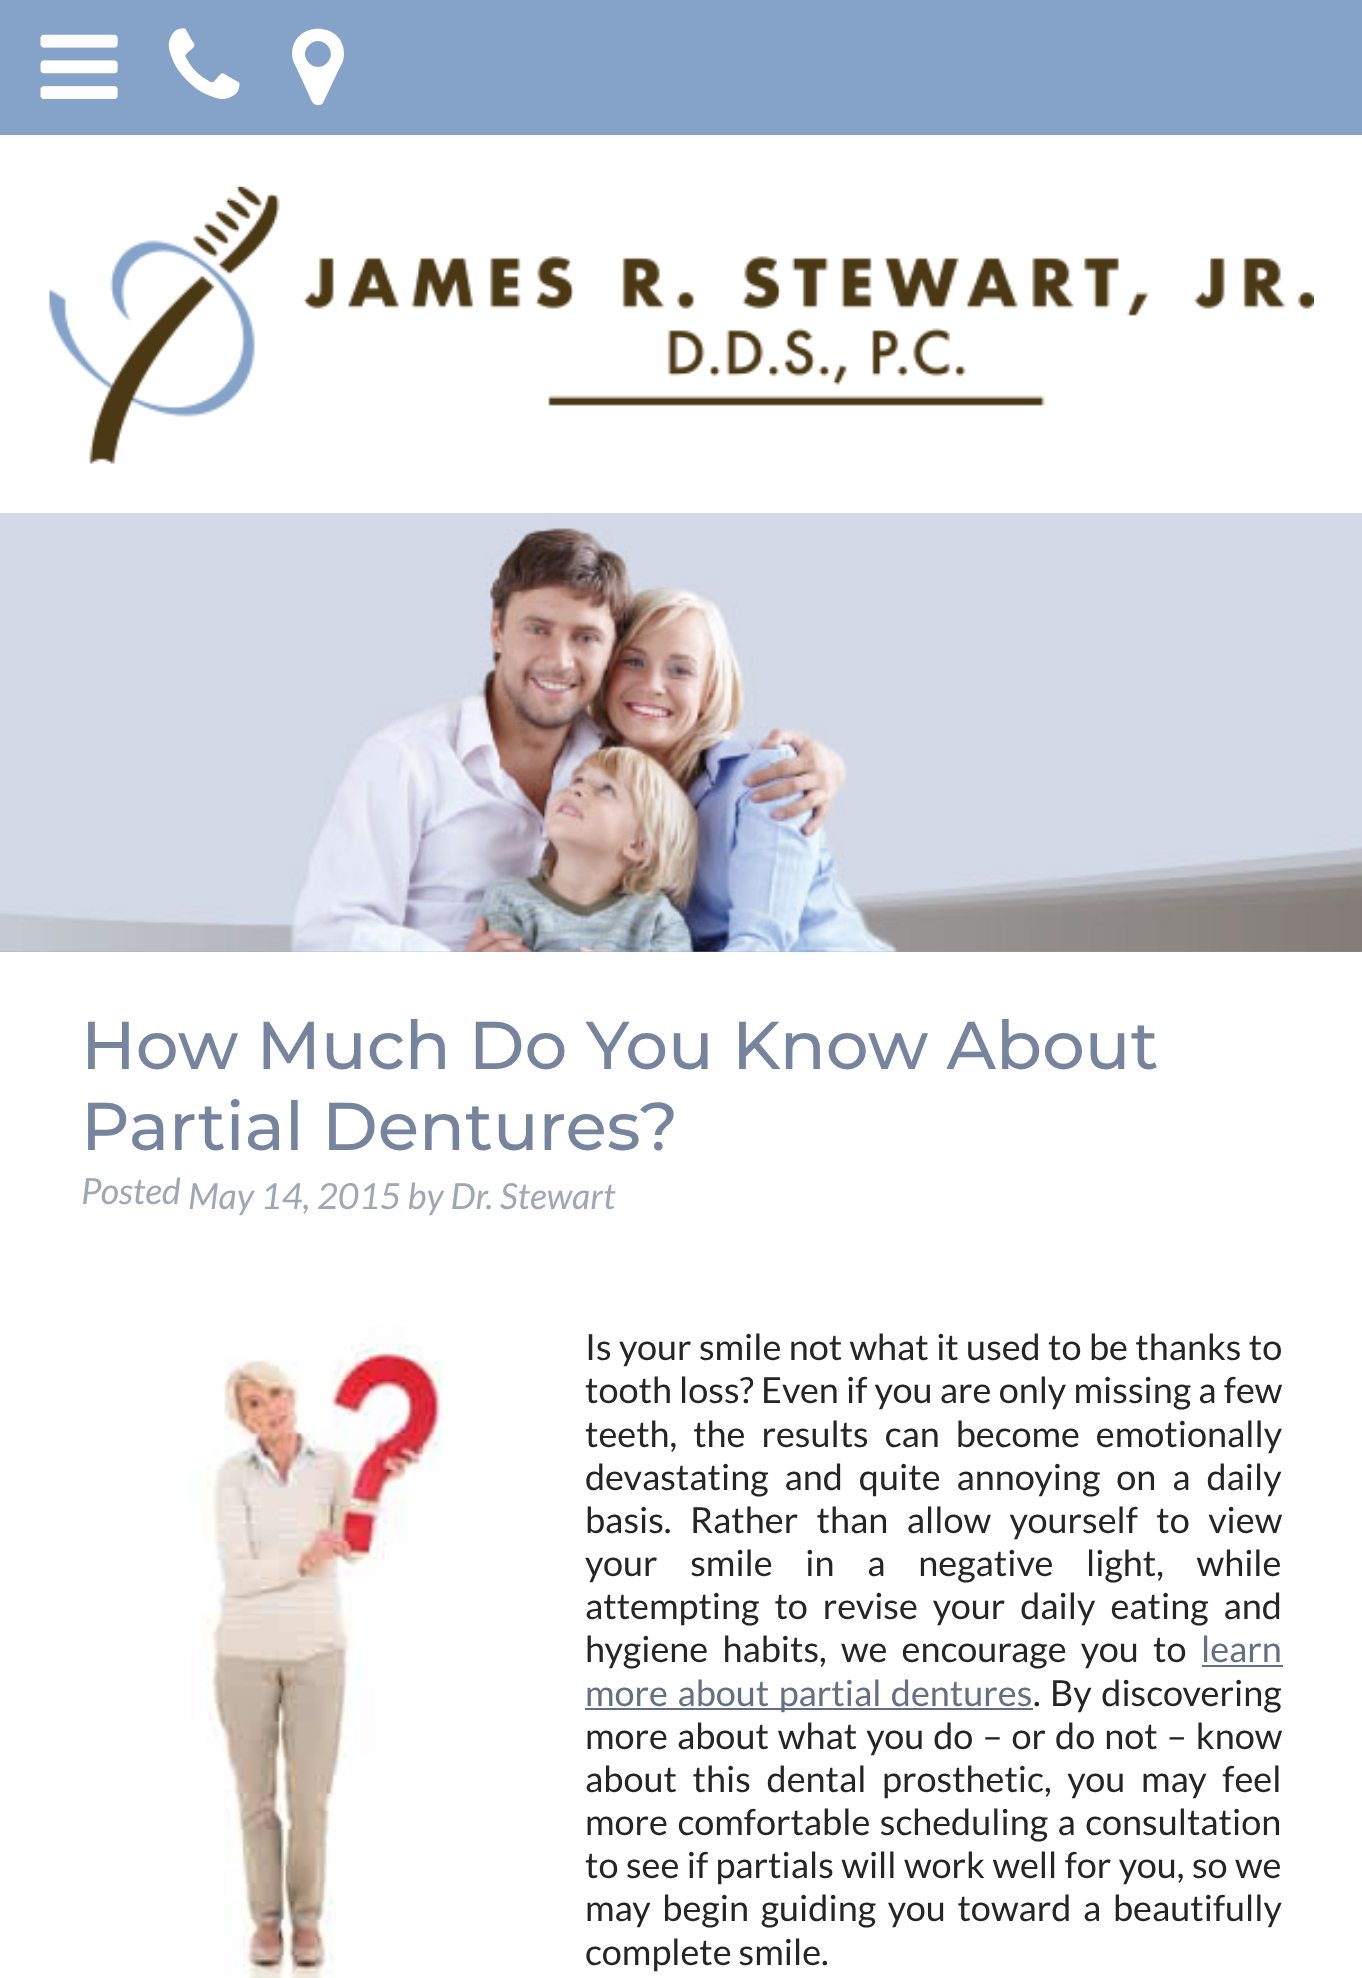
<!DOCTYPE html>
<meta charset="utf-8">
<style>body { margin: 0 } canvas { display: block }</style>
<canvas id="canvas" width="1362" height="1978"></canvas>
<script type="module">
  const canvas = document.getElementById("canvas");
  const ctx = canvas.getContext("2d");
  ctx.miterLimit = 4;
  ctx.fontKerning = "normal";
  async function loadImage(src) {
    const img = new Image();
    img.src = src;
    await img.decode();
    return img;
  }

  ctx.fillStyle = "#ffffff";
  ctx.fillRect(0, 0, 1362, 1978);
  ctx.fillStyle = "#85a3c9";
  ctx.fillRect(0, 0, 1362, 952);
  ctx.drawImage(await loadImage("img1.png"), 40, 34, 78, 65);
  ctx.drawImage(await loadImage("img2.png"), 168, 28, 72, 71);
  ctx.fillStyle = "#ffffff";
  ctx.beginPath();
  ctx.moveTo(327, 63);
  ctx.bezierCurveTo(339, 51, 321, 33, 309, 45);
  ctx.bezierCurveTo(297, 57, 315, 75, 327, 63);
  ctx.closePath();
  ctx.moveTo(344, 54);
  ctx.bezierCurveTo(344, 60, 342, 64, 339, 69);
  ctx.lineTo(323, 103);
  ctx.bezierCurveTo(322, 104, 321, 105, 319, 105);
  ctx.bezierCurveTo(313, 106, 311, 100, 309, 95);
  ctx.lineTo(297, 69);
  ctx.bezierCurveTo(295, 64, 292, 60, 292, 54);
  ctx.bezierCurveTo(293, 20, 344, 21, 344, 54);
  ctx.closePath();
  ctx.fill();
  ctx.fillRect(0, 135, 1362, 378);
  ctx.drawImage(await loadImage("img3.png"), 49, 186, 1265, 278);
  ctx.drawImage(await loadImage("img4.png"), 0, 513, 1362, 439);
  ctx.font = "500 67.5px Montserrat";
  ctx.fillStyle = "#76849e";
  ctx.fillText("How Much Do You Know About", 81, 1069);
  ctx.fillText("Partial Dentures?", 81, 1150);
  ctx.font = "italic 36px Lato";
  ctx.fillStyle = "#9fa6b4";
  ctx.fillText("Posted", 81, 1204);
  ctx.fillText("May 14, 2015 by Dr. Stewart", 188, 1209);
  ctx.drawImage(await loadImage("img5.png"), 190, 1326, 254, 652);
  ctx.wordSpacing = "0.4px";
  ctx.font = "36px Lato";
  ctx.fillStyle = "#252526";
  ctx.fillText("Is your smile not what it used to be thanks to", 585, 1360);
  ctx.wordSpacing = "0.25px";
  ctx.fillText("tooth loss? Even if you are only missing a few", 585, 1403);
  ctx.wordSpacing = "9px";
  ctx.fillText("teeth, the results can become emotionally", 585, 1447);
  ctx.fillText("devastating and quite annoying on a daily", 585, 1490);
  ctx.wordSpacing = "11.5px";
  ctx.fillText("basis. Rather than allow yourself to view", 585, 1533);
  ctx.wordSpacing = "25.75px";
  ctx.fillText("your smile in a negative light, while", 585, 1576);
  ctx.wordSpacing = "8px";
  ctx.fillText("attempting to revise your daily eating and", 585, 1619);
  ctx.wordSpacing = "7.25px";
  ctx.fillText("hygiene habits, we encourage you to", 585, 1662);
  ctx.wordSpacing = "0px";
  ctx.fillStyle = "#636f85";
  ctx.fillText("learn", 1201, 1662);
  ctx.fillRect(1202, 1665, 81, 2);
  ctx.fillRect(585, 1708, 448, 2);
  ctx.wordSpacing = "2.5px";
  ctx.fillText("more about partial dentures", 585, 1706);
  ctx.fillStyle = "#252526";
  ctx.fillText(". By discovering", 1033, 1706);
  ctx.wordSpacing = "2.1px";
  ctx.fillText("more about what you do – or do not – know", 585, 1749);
  ctx.wordSpacing = "8.75px";
  ctx.fillText("about this dental prosthetic, you may feel", 585, 1792);
  ctx.wordSpacing = "2.5px";
  ctx.fillText("more comfortable scheduling a consultation", 585, 1835);
  ctx.wordSpacing = "0.5px";
  ctx.fillText("to see if partials will work well for you, so we", 585, 1878);
  ctx.wordSpacing = "4.75px";
  ctx.fillText("may begin guiding you toward a beautifully", 585, 1921);
  ctx.wordSpacing = "0px";
  ctx.fillText("complete smile.", 585, 1965);
</script>
